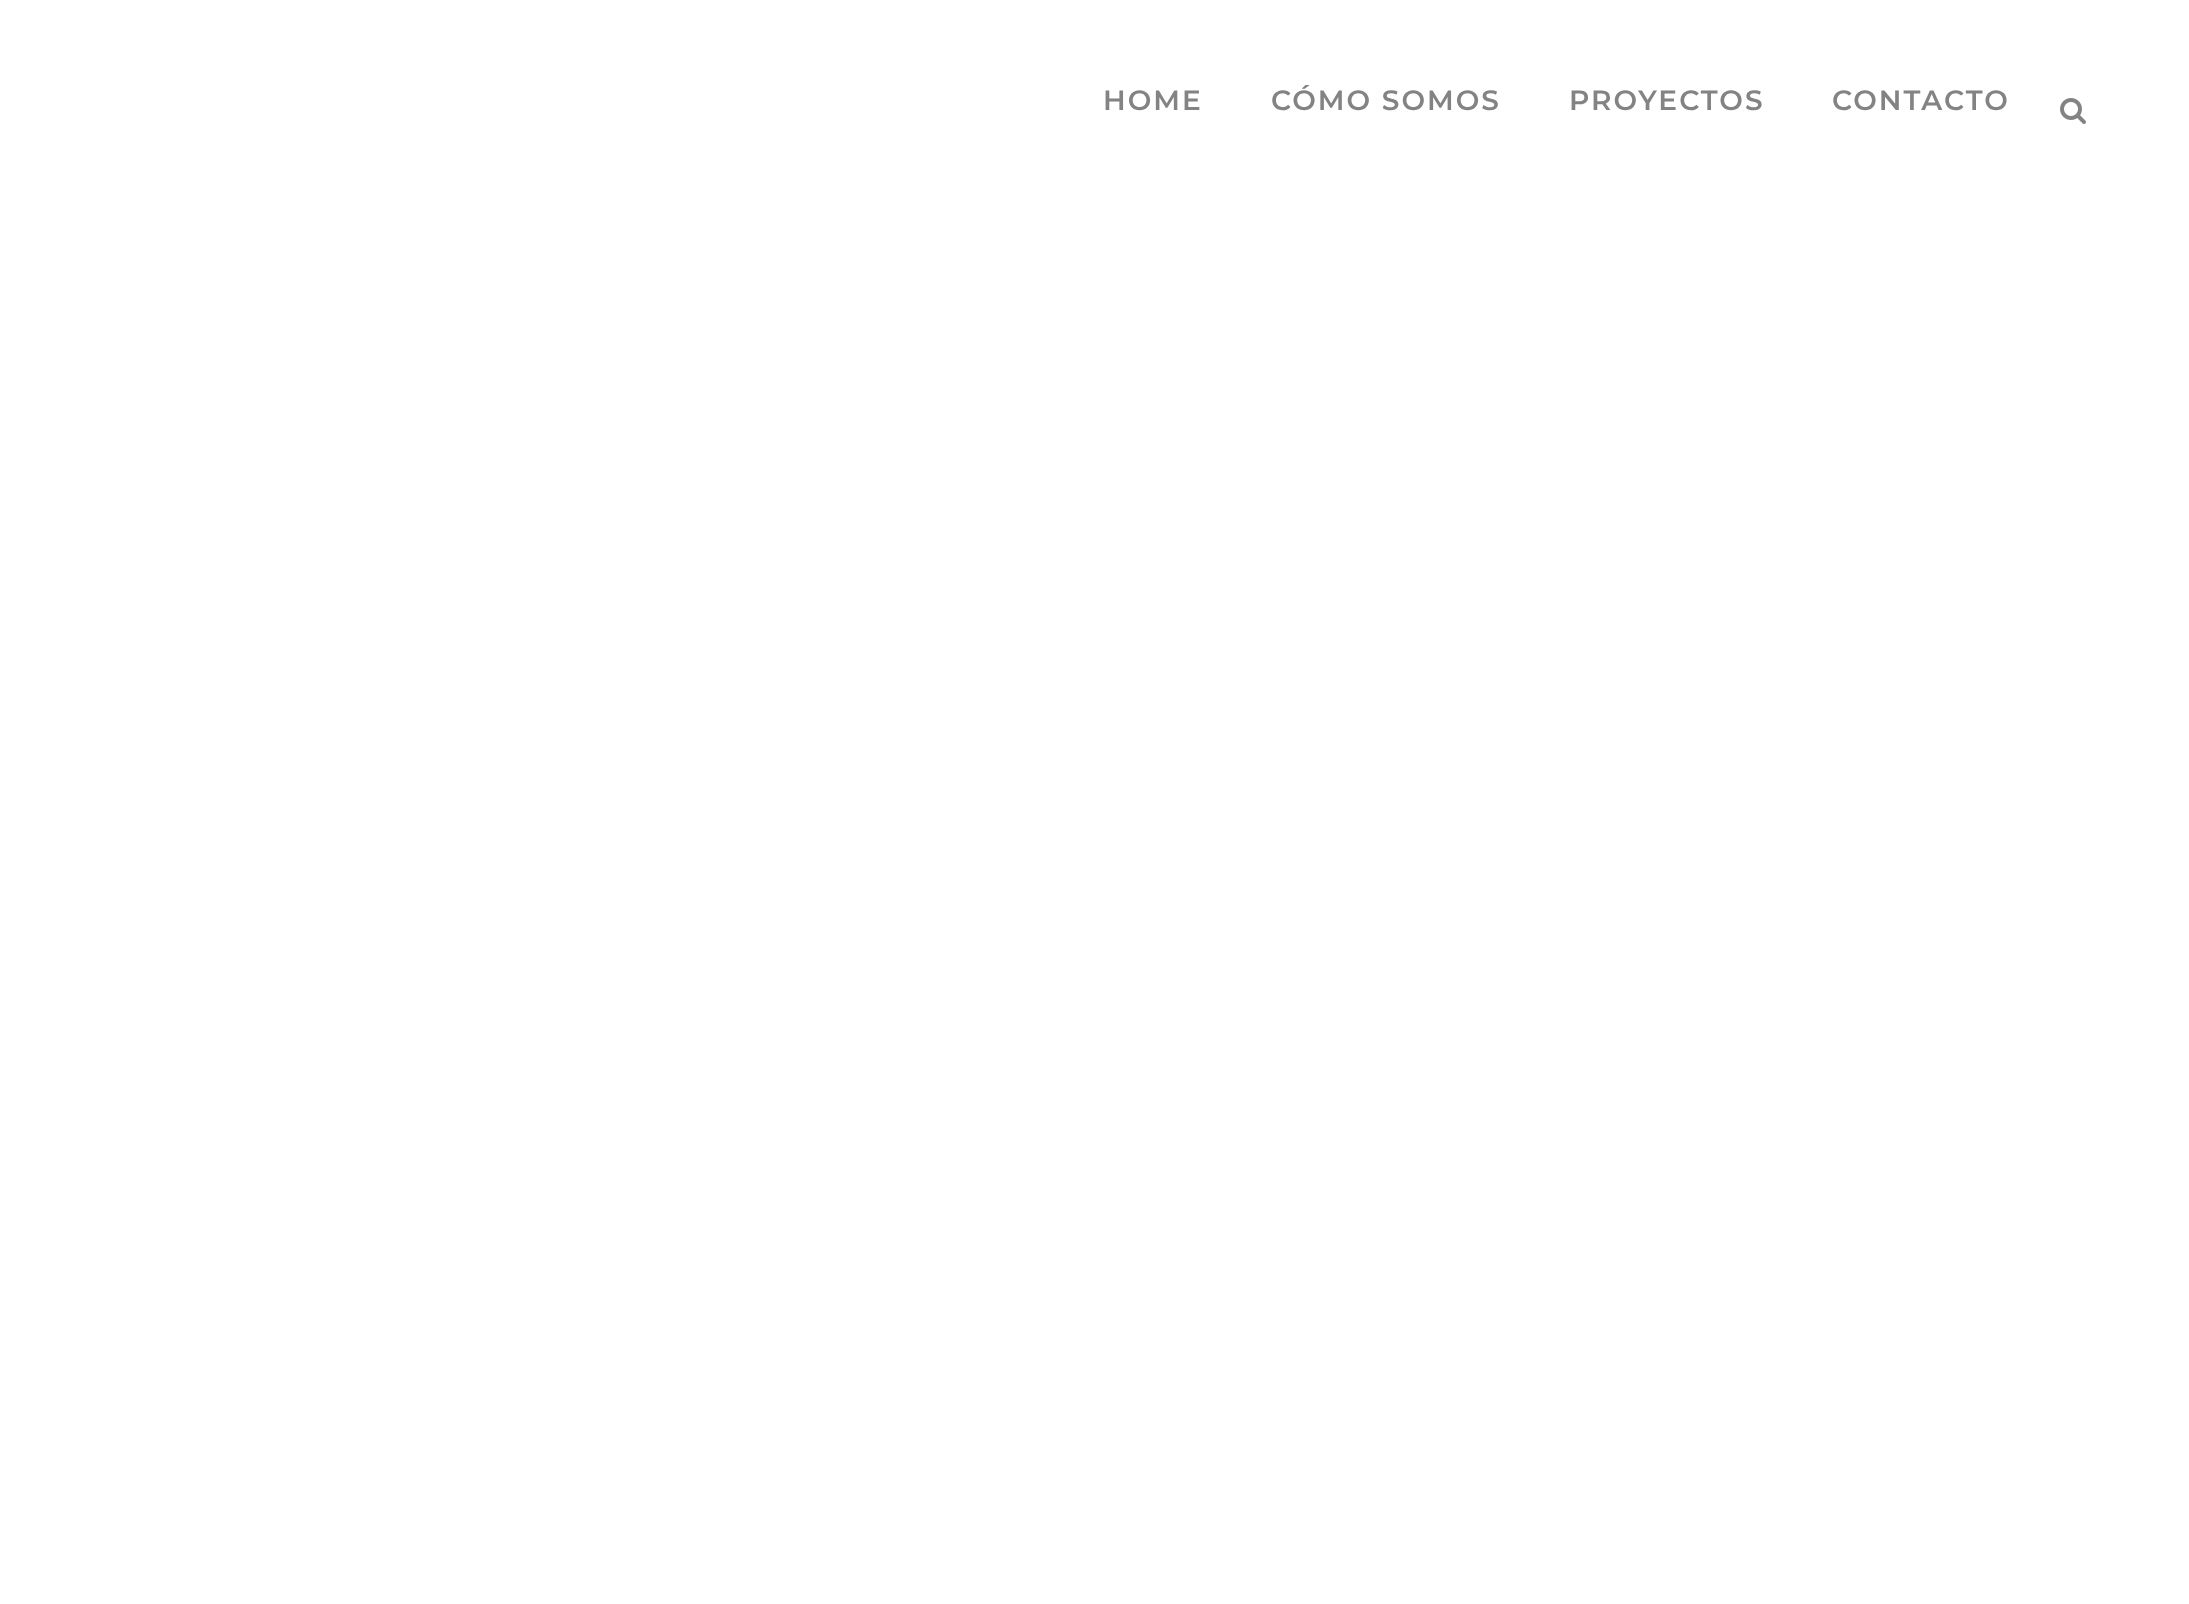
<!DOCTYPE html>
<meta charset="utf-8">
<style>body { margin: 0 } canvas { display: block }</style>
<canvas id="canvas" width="2189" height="1604"></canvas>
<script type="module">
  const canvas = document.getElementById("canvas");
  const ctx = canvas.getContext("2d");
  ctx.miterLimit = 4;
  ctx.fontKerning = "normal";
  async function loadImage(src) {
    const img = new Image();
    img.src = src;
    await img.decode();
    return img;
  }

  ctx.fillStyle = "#ffffff";
  ctx.fillRect(0, 0, 2189, 1604);
  ctx.letterSpacing = "2px";
  ctx.font = "600 28px Montserrat";
  ctx.fillStyle = "#848383";
  ctx.fillText("HOME", 1103, 110);
  ctx.fillText("CÓMO SOMOS", 1271, 110);
  ctx.fillText("PROYECTOS", 1569, 110);
  ctx.fillText("CONTACTO", 1832, 110);
  ctx.drawImage(await loadImage("img1.png"), 2060, 98, 26, 26);
</script>
